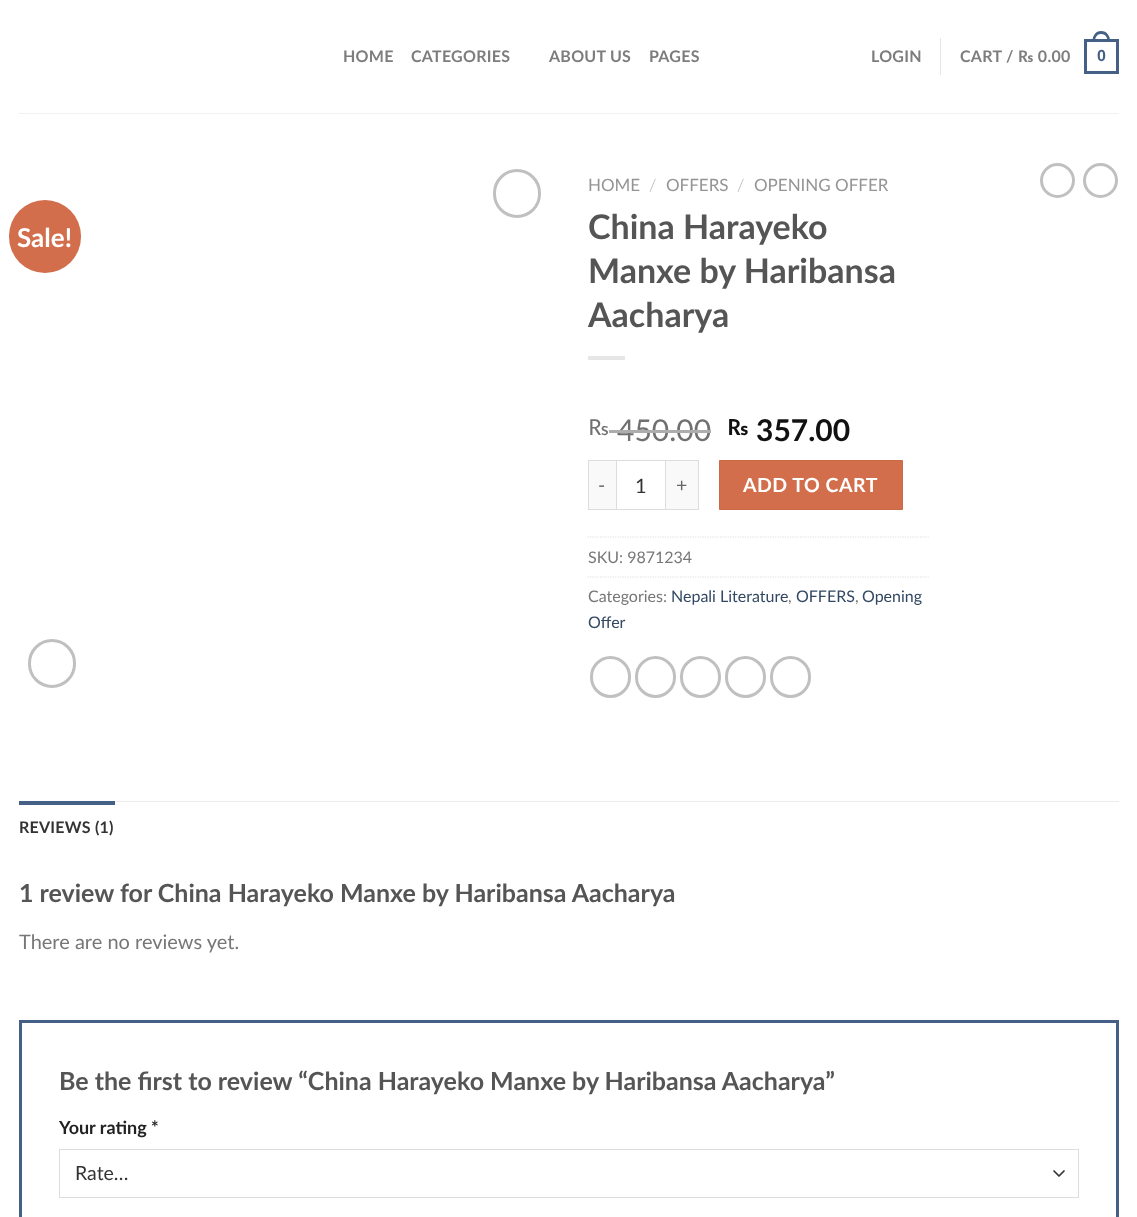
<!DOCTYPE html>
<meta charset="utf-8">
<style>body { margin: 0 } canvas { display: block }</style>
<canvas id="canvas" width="1137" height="1217"></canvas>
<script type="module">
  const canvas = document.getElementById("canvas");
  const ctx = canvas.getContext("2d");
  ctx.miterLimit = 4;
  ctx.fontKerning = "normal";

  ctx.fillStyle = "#ffffff";
  ctx.fillRect(0, 0, 1137, 1217);
  ctx.letterSpacing = "0.25px";
  ctx.font = "bold 16px Lato";
  ctx.fillStyle = "#7d7d7d";
  ctx.fillText("HOME", 343, 62);
  ctx.fillText("CATEGORIES", 411, 62);
  ctx.fillText("ABOUT US", 549, 62);
  ctx.fillText("PAGES", 649, 62);
  ctx.fillText("LOGIN", 871, 62);
  ctx.fillStyle = "#e6e6e6";
  ctx.fillRect(940, 38, 1, 37);
  ctx.fillStyle = "#7d7d7d";
  ctx.fillText("CART / ₨ 0.00", 960, 62);
  ctx.strokeStyle = "#446084";
  ctx.lineWidth = 3;
  ctx.strokeRect(1085.5, 40.5, 32, 32);
  ctx.fillStyle = "#446084";
  ctx.beginPath();
  ctx.moveTo(1101, 31);
  ctx.bezierCurveTo(1107, 31, 1110, 36, 1110, 41);
  ctx.lineTo(1092.5, 41);
  ctx.bezierCurveTo(1092.5, 36, 1095.5, 31, 1101, 31);
  ctx.closePath();
  ctx.moveTo(1101, 34);
  ctx.bezierCurveTo(1105.5, 34, 1107.5, 37.5, 1107.5, 41);
  ctx.lineTo(1095, 41);
  ctx.bezierCurveTo(1095, 37.5, 1097, 34, 1101, 34);
  ctx.closePath();
  ctx.fill("evenodd");
  ctx.font = "bold 16px Liberation Sans";
  ctx.fillText("0", 1097, 61);
  ctx.fillStyle = "#f1f1f1";
  ctx.fillRect(19, 113, 1100, 1);
  ctx.beginPath();
  ctx.roundRect(494.5, 170.5, 45, 46, 22.5);
  ctx.strokeStyle = "#c0c0c0";
  ctx.stroke();
  ctx.fillStyle = "#d26e4b";
  ctx.beginPath();
  ctx.roundRect(9, 200, 72, 73, 36);
  ctx.fill();
  ctx.letterSpacing = "0px";
  ctx.font = "bold 26px Lato";
  ctx.fillStyle = "#ffffff";
  ctx.fillText("Sale!", 17, 247);
  ctx.beginPath();
  ctx.roundRect(29.5, 640.5, 45, 46, 22.5);
  ctx.stroke();
  ctx.font = "17px Lato";
  ctx.fillStyle = "#949494";
  ctx.fillText("HOME", 588, 191);
  ctx.font = "300 17px Lato";
  ctx.fillStyle = "#b2b2b2";
  ctx.fillText("/", 649, 191);
  ctx.font = "17px Lato";
  ctx.fillStyle = "#949494";
  ctx.fillText("OFFERS", 666, 191);
  ctx.font = "300 17px Lato";
  ctx.fillStyle = "#b2b2b2";
  ctx.fillText("/", 737, 191);
  ctx.font = "17px Lato";
  ctx.fillStyle = "#949494";
  ctx.fillText("OPENING OFFER", 754, 191);
  ctx.font = "bold 34px Lato";
  ctx.fillStyle = "#555555";
  ctx.fillText("China Harayeko", 588, 239);
  ctx.fillText("Manxe by Haribansa", 588, 283);
  ctx.fillText("Aacharya", 588, 327);
  ctx.fillStyle = "#e6e6e6";
  ctx.fillRect(588, 356, 37, 4);
  ctx.font = "22px Lato";
  ctx.fillStyle = "#707070";
  ctx.fillText("₨", 588, 435);
  ctx.font = "30px Lato";
  ctx.fillText("450.00", 617, 441);
  ctx.fillStyle = "#adadad";
  ctx.fillRect(609, 430, 102, 3);
  ctx.font = "bold 22px Lato";
  ctx.fillStyle = "#111111";
  ctx.fillText("₨", 727, 435);
  ctx.font = "bold 30px Lato";
  ctx.fillText("357.00", 756, 441);
  ctx.fillStyle = "#f9f9f9";
  ctx.fillRect(589, 461, 27, 48);
  ctx.fillStyle = "#dddddd";
  ctx.fillRect(588, 460, 28, 1);
  ctx.fillRect(588, 509, 28, 1);
  ctx.fillRect(588, 460, 1, 50);
  ctx.letterSpacing = "0.5px";
  ctx.font = "19.5px Lato";
  ctx.fillStyle = "#666666";
  ctx.fillText("-", 598, 492);
  ctx.strokeStyle = "#dddddd";
  ctx.lineWidth = 1;
  ctx.strokeRect(616.5, 460.5, 49, 49);
  ctx.letterSpacing = "0px";
  ctx.font = "20px Lato";
  ctx.fillStyle = "#333333";
  ctx.fillText("1", 635, 493);
  ctx.fillStyle = "#f9f9f9";
  ctx.fillRect(666, 461, 32, 48);
  ctx.fillStyle = "#dddddd";
  ctx.fillRect(666, 460, 33, 1);
  ctx.fillRect(698, 460, 1, 50);
  ctx.fillRect(666, 509, 33, 1);
  ctx.letterSpacing = "0.5px";
  ctx.font = "19.5px Lato";
  ctx.fillStyle = "#666666";
  ctx.fillText("+", 676, 492);
  ctx.fillStyle = "#d26e4b";
  ctx.beginPath();
  ctx.rect(719.5, 460.5, 183, 49);
  ctx.fill();
  ctx.strokeStyle = "#c86947";
  ctx.stroke();
  ctx.font = "bold 19.5px Lato";
  ctx.fillStyle = "#ffffff";
  ctx.fillText("ADD TO CART", 743, 492);
  ctx.beginPath();
  ctx.moveTo(587.5, 537);
  ctx.lineTo(929, 537);
  ctx.strokeStyle = "#dddddd";
  ctx.lineWidth = 1.2;
  ctx.setLineDash([1.25, 1.25]);
  ctx.stroke();
  ctx.letterSpacing = "0px";
  ctx.font = "16px Lato";
  ctx.fillStyle = "#777777";
  ctx.fillText("SKU: 9871234", 588, 563);
  ctx.beginPath();
  ctx.moveTo(587.5, 577);
  ctx.lineTo(929, 577);
  ctx.stroke();
  ctx.fillText("Categories:", 588, 602);
  ctx.fillStyle = "#334862";
  ctx.fillText("Nepali Literature", 671, 602);
  ctx.fillStyle = "#777777";
  ctx.fillText(",", 788, 602);
  ctx.fillStyle = "#334862";
  ctx.fillText("OFFERS", 796, 602);
  ctx.fillStyle = "#777777";
  ctx.fillText(",", 855, 602);
  ctx.fillStyle = "#334862";
  ctx.fillText("Opening", 862, 602);
  ctx.fillText("Offer", 588, 628);
  ctx.beginPath();
  ctx.roundRect(591.5, 657.5, 38, 39, 19);
  ctx.strokeStyle = "#c0c0c0";
  ctx.lineWidth = 3;
  ctx.setLineDash([]);
  ctx.stroke();
  ctx.beginPath();
  ctx.roundRect(636.5, 657.5, 38, 39, 19);
  ctx.stroke();
  ctx.beginPath();
  ctx.roundRect(681.5, 657.5, 38, 39, 19);
  ctx.stroke();
  ctx.beginPath();
  ctx.roundRect(726.5, 657.5, 38, 39, 19);
  ctx.stroke();
  ctx.beginPath();
  ctx.roundRect(771.5, 657.5, 38, 39, 19);
  ctx.stroke();
  ctx.beginPath();
  ctx.arc(1057.5, 180.5, 16, 0, Math.PI * 2);
  ctx.stroke();
  ctx.beginPath();
  ctx.arc(1100.5, 180.5, 16, 0, Math.PI * 2);
  ctx.stroke();
  ctx.fillStyle = "#ececec";
  ctx.fillRect(115, 801, 1004, 1);
  ctx.fillStyle = "#446084";
  ctx.fillRect(19, 801, 96, 4);
  ctx.letterSpacing = "0.25px";
  ctx.font = "bold 16px Lato";
  ctx.fillStyle = "#333333";
  ctx.fillText("REVIEWS (1)", 19, 833);
  ctx.letterSpacing = "0px";
  ctx.font = "bold 25px Lato";
  ctx.fillStyle = "#555555";
  ctx.fillText("1 review for China Harayeko Manxe by Haribansa Aacharya", 19, 902);
  ctx.font = "20px Lato";
  ctx.fillStyle = "#777777";
  ctx.fillText("There are no reviews yet.", 19, 949);
  ctx.strokeStyle = "#446084";
  ctx.strokeRect(20.5, 1021.5, 1097, 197);
  ctx.font = "bold 25px Lato";
  ctx.fillStyle = "#555555";
  ctx.fillText("Be the first to review “China Harayeko Manxe by Haribansa Aacharya”", 59, 1090);
  ctx.font = "bold 18px Lato";
  ctx.fillStyle = "#222222";
  ctx.fillText("Your rating *", 59, 1134);
  ctx.beginPath();
  ctx.moveTo(1054, 1171);
  ctx.lineTo(1059, 1176);
  ctx.lineTo(1064, 1171);
  ctx.strokeStyle = "#333333";
  ctx.lineWidth = 1.7;
  ctx.lineCap = "round";
  ctx.lineJoin = "round";
  ctx.stroke();
  ctx.strokeStyle = "#dddddd";
  ctx.lineWidth = 1;
  ctx.lineJoin = "miter";
  ctx.strokeRect(59.5, 1149.5, 1019, 48);
  ctx.font = "19.5px Lato";
  ctx.fillStyle = "#333333";
  ctx.fillText("Rate…", 75, 1180);
</script>
